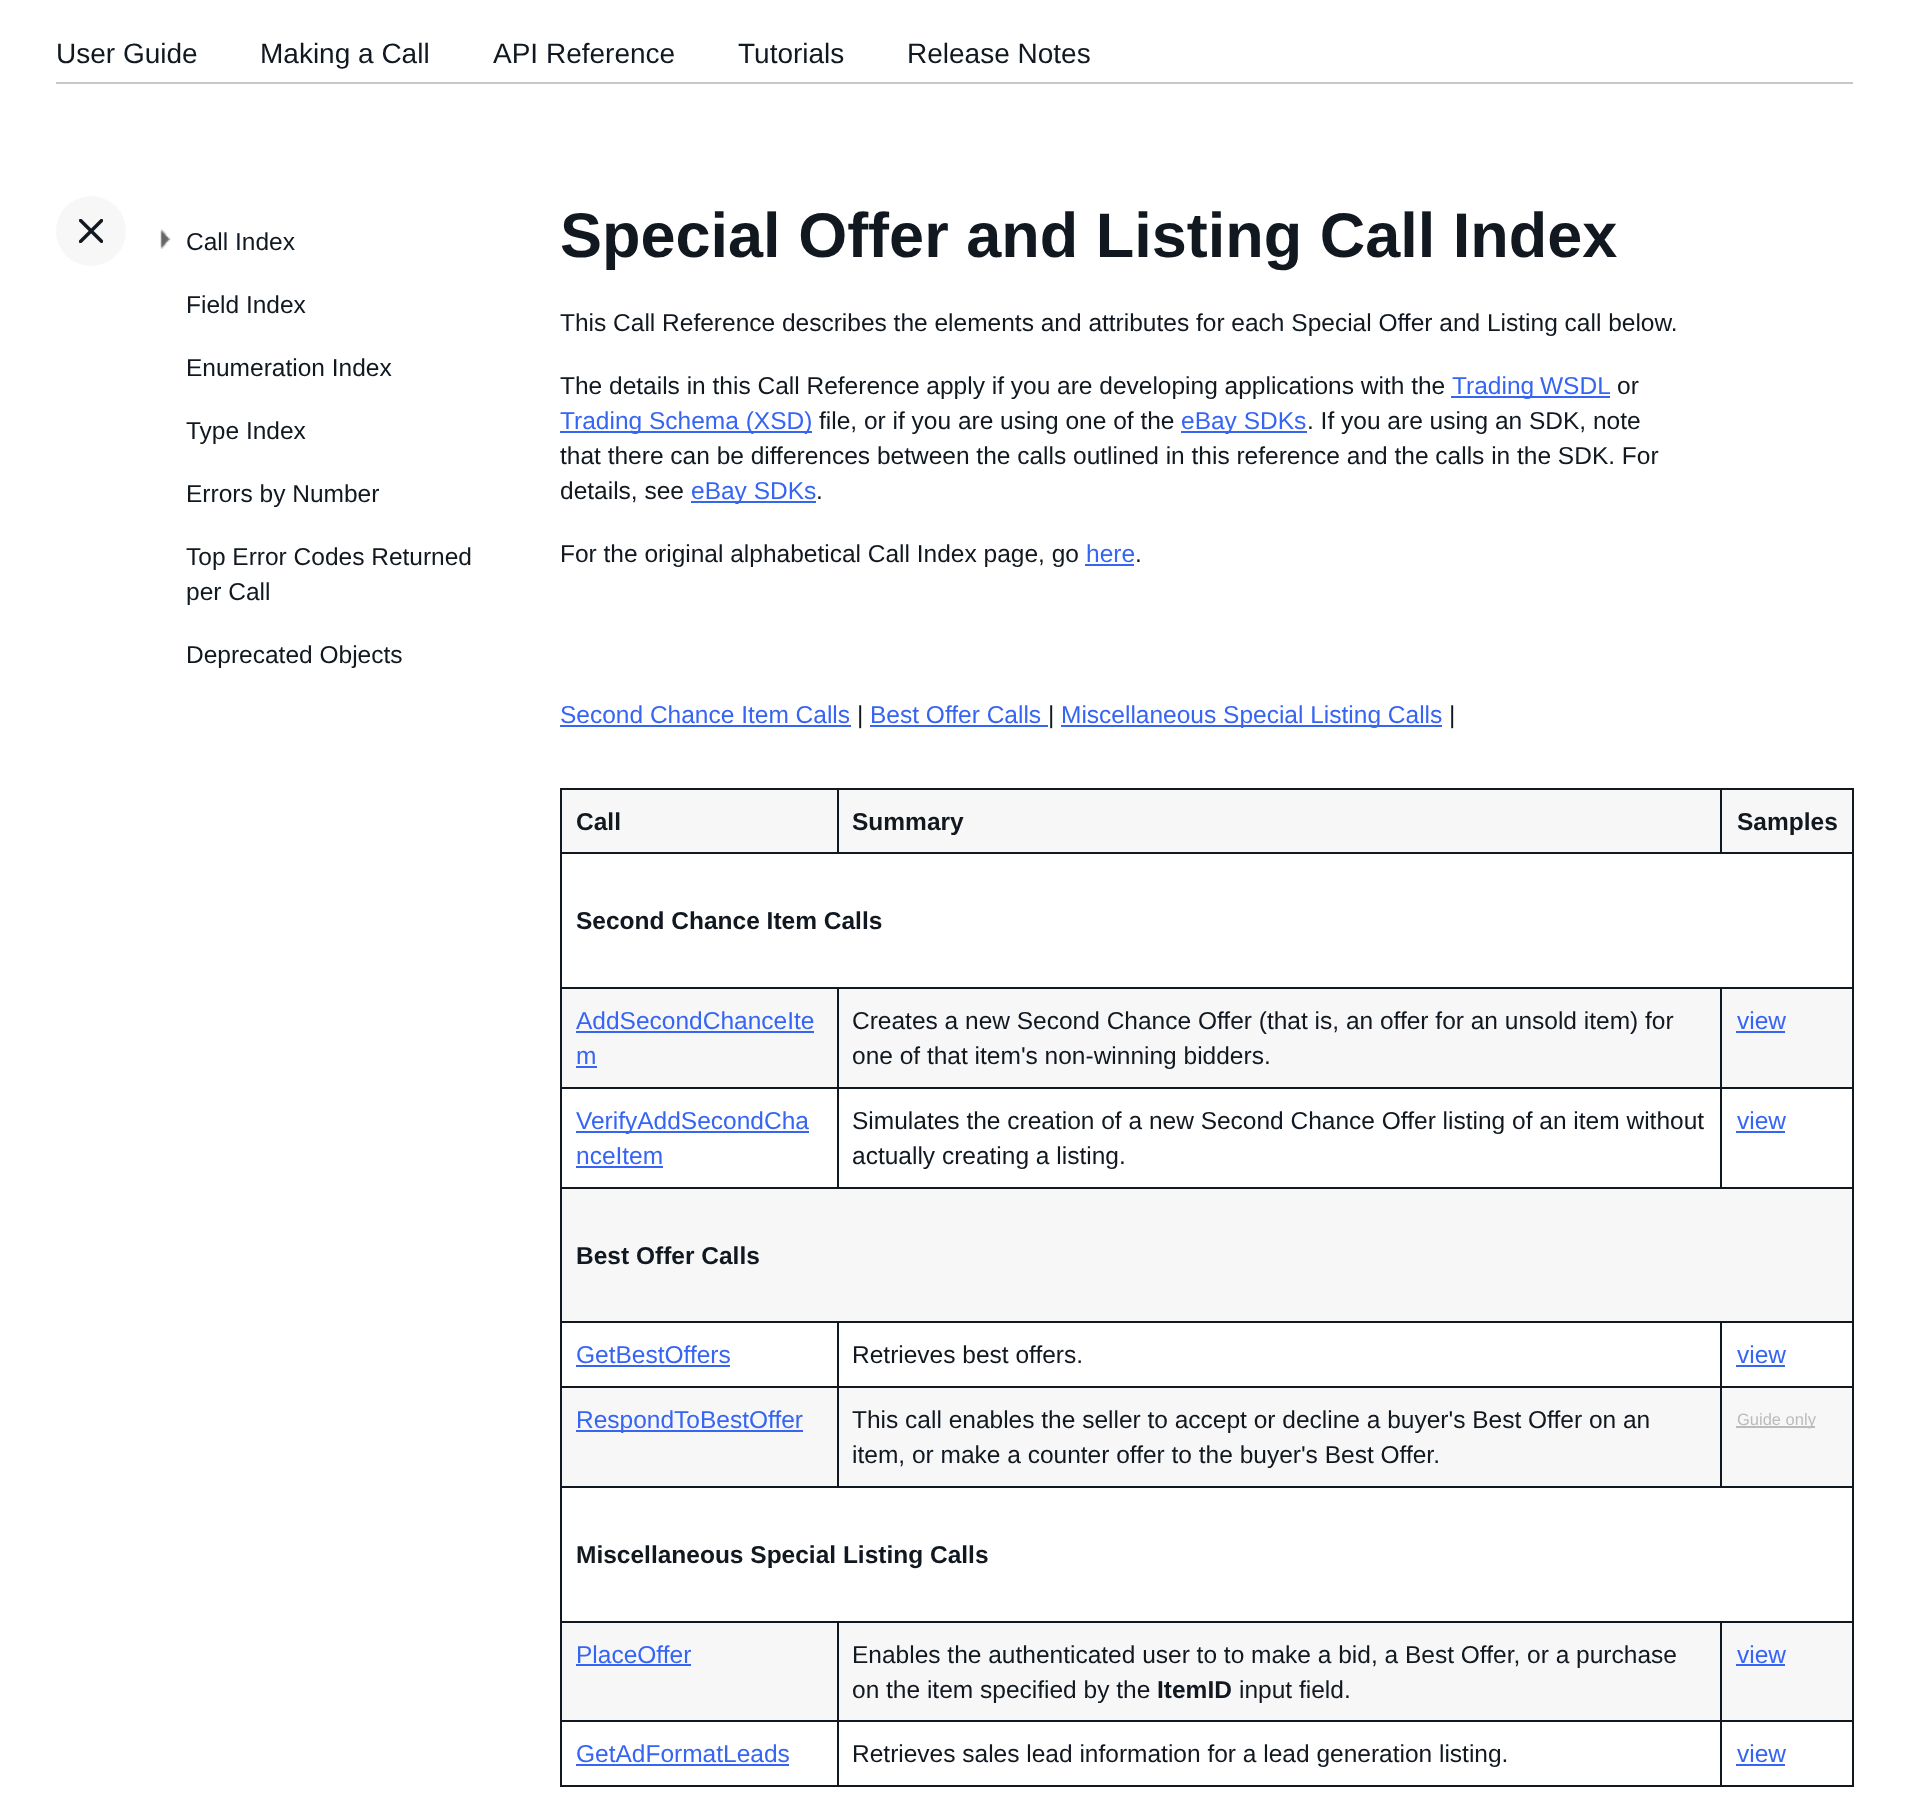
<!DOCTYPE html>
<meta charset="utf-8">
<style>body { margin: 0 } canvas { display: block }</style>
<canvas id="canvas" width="1909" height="1794"></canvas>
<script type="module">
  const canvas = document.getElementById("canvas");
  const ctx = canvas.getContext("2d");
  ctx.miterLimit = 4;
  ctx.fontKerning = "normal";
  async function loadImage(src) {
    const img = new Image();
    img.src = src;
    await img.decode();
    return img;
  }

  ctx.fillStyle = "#ffffff";
  ctx.fillRect(0, 0, 1909, 1794);
  ctx.fillStyle = "#c7c7c7";
  ctx.fillRect(56, 82, 1797, 2);
  ctx.font = "28px Liberation Sans";
  ctx.fillStyle = "#111820";
  ctx.fillText("User Guide", 56, 63);
  ctx.fillText("Making a Call", 260, 63);
  ctx.fillText("API Reference", 493, 63);
  ctx.fillText("Tutorials", 738, 63);
  ctx.fillText("Release Notes", 907, 63);
  ctx.fillStyle = "#f7f7f7";
  ctx.beginPath();
  ctx.arc(91, 231, 35, 0, Math.PI * 2);
  ctx.fill();
  ctx.drawImage(await loadImage("img1.png"), 79, 219, 24, 24);
  ctx.drawImage(await loadImage("img2.png"), 160, 229, 11, 20);
  ctx.font = "24.5px Liberation Sans";
  ctx.fillStyle = "#111820";
  ctx.fillText("Call Index", 186, 250);
  ctx.fillText("Field Index", 186, 313);
  ctx.fillText("Enumeration Index", 186, 376);
  ctx.fillText("Type Index", 186, 439);
  ctx.fillText("Errors by Number", 186, 502);
  ctx.fillText("Top Error Codes Returned", 186, 565);
  ctx.fillText("per Call", 186, 600);
  ctx.fillText("Deprecated Objects", 186, 663);
  ctx.font = "bold 63px Liberation Sans";
  ctx.fillText("Special Offer and Listing Call Index", 560, 257);
  ctx.font = "24.5px Liberation Sans";
  ctx.fillText("This Call Reference describes the elements and attributes for each Special Offer and Listing call below.", 560, 331);
  ctx.fillText("The details in this Call Reference apply if you are developing applications with the", 560, 394);
  ctx.fillStyle = "#3665f3";
  ctx.fillRect(1451, 396, 159, 2);
  ctx.wordSpacing = "-1px";
  ctx.fillText("Trading WSDL", 1452, 394);
  ctx.wordSpacing = "0px";
  ctx.fillStyle = "#111820";
  ctx.fillText("or", 1617, 394);
  ctx.fillStyle = "#3665f3";
  ctx.fillRect(560, 431, 252, 2);
  ctx.fillText("Trading Schema (XSD)", 560, 429);
  ctx.fillStyle = "#111820";
  ctx.fillText("file, or if you are using one of the", 819, 429);
  ctx.fillStyle = "#3665f3";
  ctx.fillRect(1181, 431, 126, 2);
  ctx.fillText("eBay SDKs", 1181, 429);
  ctx.fillStyle = "#111820";
  ctx.fillText(". If you are using an SDK, note", 1307, 429);
  ctx.fillText("that there can be differences between the calls outlined in this reference and the calls in the SDK. For", 560, 464);
  ctx.fillText("details, see", 560, 499);
  ctx.fillStyle = "#3665f3";
  ctx.fillRect(691, 501, 125, 2);
  ctx.fillText("eBay SDKs", 691, 499);
  ctx.fillStyle = "#111820";
  ctx.fillText(".", 816, 499);
  ctx.fillText("For the original alphabetical Call Index page, go", 560, 562);
  ctx.fillStyle = "#3665f3";
  ctx.fillText("here", 1086, 562);
  ctx.fillRect(1085, 564, 49, 2);
  ctx.fillStyle = "#111820";
  ctx.fillText(".", 1135, 562);
  ctx.fillStyle = "#3665f3";
  ctx.fillText("Second Chance Item Calls", 560, 723);
  ctx.fillRect(560, 725, 291, 2);
  ctx.fillStyle = "#111820";
  ctx.fillText("|", 857, 723);
  ctx.fillStyle = "#3665f3";
  ctx.fillText("Best Offer Calls", 870, 723);
  ctx.fillRect(870, 725, 178, 2);
  ctx.fillStyle = "#111820";
  ctx.fillText("|", 1048, 723);
  ctx.fillStyle = "#3665f3";
  ctx.fillRect(1061, 725, 381, 2);
  ctx.fillText("Miscellaneous Special Listing Calls", 1061, 723);
  ctx.fillStyle = "#111820";
  ctx.fillText("|", 1449, 723);
  ctx.fillRect(560, 788, 1293, 2);
  ctx.fillRect(1852, 788, 2, 999);
  ctx.fillRect(560, 1785, 1293, 2);
  ctx.fillRect(560, 788, 2, 999);
  ctx.fillStyle = "#f7f7f7";
  ctx.fillRect(562, 790, 1290, 62);
  ctx.font = "bold 24.5px Liberation Sans";
  ctx.fillStyle = "#111820";
  ctx.fillText("Call", 576, 830);
  ctx.fillRect(560, 852, 1293, 2);
  ctx.fillRect(837, 788, 2, 66);
  ctx.fillText("Summary", 852, 830);
  ctx.fillRect(1720, 788, 2, 66);
  ctx.fillText("Samples", 1737, 830);
  ctx.fillText("Second Chance Item Calls", 576, 929);
  ctx.fillStyle = "#f7f7f7";
  ctx.fillRect(562, 989, 1290, 98);
  ctx.fillStyle = "#111820";
  ctx.fillRect(1720, 987, 133, 2);
  ctx.fillRect(1720, 1087, 133, 2);
  ctx.fillRect(560, 1187, 1293, 2);
  ctx.fillRect(1720, 1087, 2, 101);
  ctx.fillRect(837, 1087, 885, 2);
  ctx.fillRect(1720, 987, 2, 102);
  ctx.fillRect(837, 987, 885, 2);
  ctx.fillRect(837, 1087, 2, 101);
  ctx.fillRect(560, 1087, 278, 2);
  ctx.fillRect(837, 987, 2, 102);
  ctx.fillRect(560, 987, 278, 2);
  ctx.font = "24.5px Liberation Sans";
  ctx.fillStyle = "#3665f3";
  ctx.fillText("AddSecondChanceIte", 576, 1029);
  ctx.fillRect(576, 1031, 238, 2);
  ctx.fillText("m", 576, 1064);
  ctx.fillRect(576, 1066, 21, 2);
  ctx.fillStyle = "#111820";
  ctx.fillText("Creates a new Second Chance Offer (that is, an offer for an unsold item) for", 852, 1029);
  ctx.fillText("one of that item's non-winning bidders.", 852, 1064);
  ctx.fillStyle = "#3665f3";
  ctx.fillText("view", 1737, 1029);
  ctx.fillRect(1736, 1031, 49, 2);
  ctx.fillRect(576, 1131, 233, 2);
  ctx.fillText("VerifyAddSecondCha", 576, 1129);
  ctx.fillText("nceItem", 576, 1164);
  ctx.fillRect(576, 1166, 87, 2);
  ctx.fillStyle = "#111820";
  ctx.fillText("Simulates the creation of a new Second Chance Offer listing of an item without", 852, 1129);
  ctx.fillText("actually creating a listing.", 852, 1164);
  ctx.fillStyle = "#3665f3";
  ctx.fillText("view", 1737, 1129);
  ctx.fillRect(1736, 1131, 49, 2);
  ctx.fillStyle = "#f7f7f7";
  ctx.fillRect(562, 1189, 1290, 132);
  ctx.font = "bold 24.5px Liberation Sans";
  ctx.fillStyle = "#111820";
  ctx.fillText("Best Offer Calls", 576, 1264);
  ctx.fillRect(1720, 1321, 133, 2);
  ctx.fillRect(1720, 1386, 133, 2);
  ctx.fillStyle = "#f7f7f7";
  ctx.fillRect(562, 1388, 1290, 98);
  ctx.fillStyle = "#111820";
  ctx.fillRect(560, 1486, 1293, 2);
  ctx.fillRect(1720, 1386, 2, 102);
  ctx.fillRect(837, 1386, 885, 2);
  ctx.fillRect(1720, 1321, 2, 67);
  ctx.fillRect(837, 1321, 885, 2);
  ctx.fillRect(837, 1386, 2, 102);
  ctx.fillRect(560, 1386, 278, 2);
  ctx.fillRect(837, 1321, 2, 67);
  ctx.fillRect(560, 1321, 278, 2);
  ctx.font = "24.5px Liberation Sans";
  ctx.fillStyle = "#3665f3";
  ctx.fillText("GetBestOffers", 576, 1363);
  ctx.fillRect(576, 1365, 154, 2);
  ctx.fillStyle = "#111820";
  ctx.fillText("Retrieves best offers.", 852, 1363);
  ctx.fillStyle = "#3665f3";
  ctx.fillText("view", 1737, 1363);
  ctx.fillRect(1736, 1365, 49, 2);
  ctx.fillRect(576, 1430, 227, 2);
  ctx.fillText("RespondToBestOffer", 576, 1428);
  ctx.fillStyle = "#111820";
  ctx.fillText("This call enables the seller to accept or decline a buyer's Best Offer on an", 852, 1428);
  ctx.fillText("item, or make a counter offer to the buyer's Best Offer.", 852, 1463);
  ctx.fillStyle = "#bbbbbb";
  ctx.fillRect(1736, 1426, 79, 2);
  ctx.font = "16.5px Liberation Sans";
  ctx.fillText("Guide only", 1737, 1425);
  ctx.font = "bold 24.5px Liberation Sans";
  ctx.fillStyle = "#111820";
  ctx.fillText("Miscellaneous Special Listing Calls", 576, 1563);
  ctx.fillStyle = "#f7f7f7";
  ctx.fillRect(562, 1623, 1290, 97);
  ctx.fillStyle = "#111820";
  ctx.fillRect(1720, 1621, 133, 2);
  ctx.fillRect(1720, 1720, 133, 2);
  ctx.fillRect(1720, 1720, 2, 67);
  ctx.fillRect(837, 1720, 885, 2);
  ctx.fillRect(1720, 1621, 2, 101);
  ctx.fillRect(837, 1621, 885, 2);
  ctx.fillRect(837, 1720, 2, 67);
  ctx.fillRect(560, 1720, 278, 2);
  ctx.fillRect(837, 1621, 2, 101);
  ctx.fillRect(560, 1621, 278, 2);
  ctx.font = "24.5px Liberation Sans";
  ctx.fillStyle = "#3665f3";
  ctx.fillText("PlaceOffer", 576, 1663);
  ctx.fillRect(576, 1664, 115, 2);
  ctx.fillStyle = "#111820";
  ctx.fillText("Enables the authenticated user to to make a bid, a Best Offer, or a purchase", 852, 1663);
  ctx.fillText("on the item specified by the", 852, 1698);
  ctx.font = "bold 24.5px Liberation Sans";
  ctx.fillText("ItemID", 1157, 1698);
  ctx.font = "24.5px Liberation Sans";
  ctx.fillText("input field.", 1239, 1698);
  ctx.fillStyle = "#3665f3";
  ctx.fillText("view", 1737, 1663);
  ctx.fillRect(1736, 1664, 49, 2);
  ctx.fillText("GetAdFormatLeads", 576, 1762);
  ctx.fillRect(576, 1764, 213, 2);
  ctx.fillStyle = "#111820";
  ctx.fillText("Retrieves sales lead information for a lead generation listing.", 852, 1762);
  ctx.fillStyle = "#3665f3";
  ctx.fillText("view", 1737, 1762);
  ctx.fillRect(1736, 1764, 49, 2);
</script>
